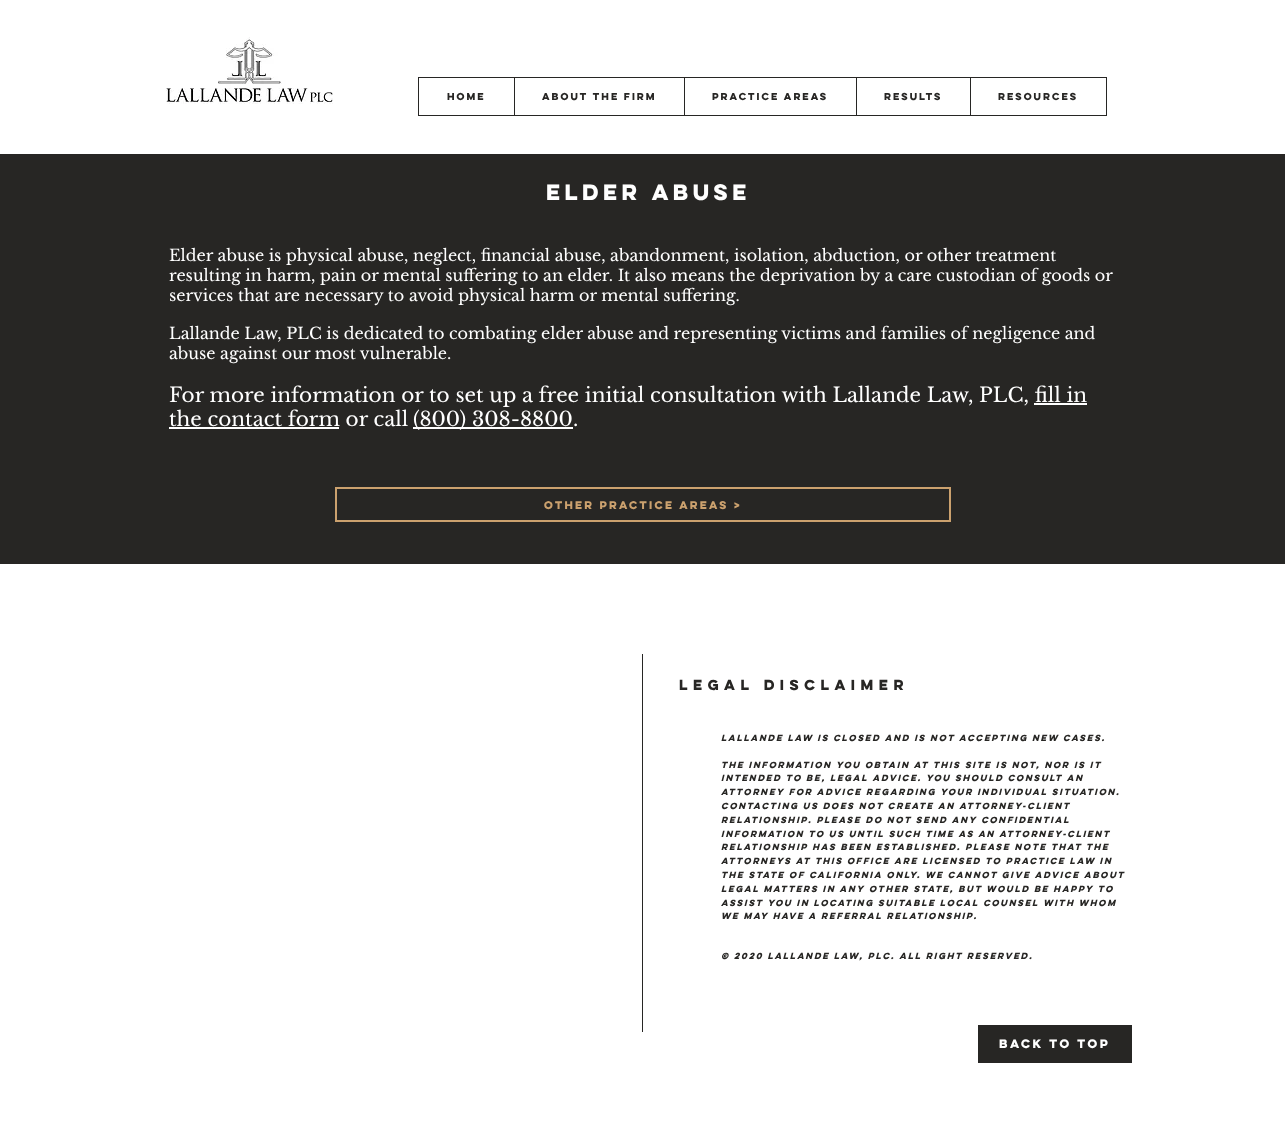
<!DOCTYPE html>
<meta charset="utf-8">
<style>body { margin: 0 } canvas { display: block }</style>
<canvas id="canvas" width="1285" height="1128"></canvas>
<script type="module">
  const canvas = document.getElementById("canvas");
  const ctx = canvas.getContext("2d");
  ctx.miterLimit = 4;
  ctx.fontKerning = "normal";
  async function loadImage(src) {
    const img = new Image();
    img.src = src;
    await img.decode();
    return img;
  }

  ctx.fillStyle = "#ffffff";
  ctx.fillRect(0, 0, 1285, 1128);
  ctx.drawImage(await loadImage("img1.png"), 166, 37, 167, 67);
  ctx.strokeStyle = "#272624";
  ctx.strokeRect(418.5, 77.5, 688, 38);
  ctx.font = "bold 9px 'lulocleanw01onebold'";
  ctx.fillStyle = "#272624";
  ctx.fillText("Home", 447, 100);
  ctx.fillRect(514, 78, 1, 37);
  ctx.fillText("About the Firm", 542, 100);
  ctx.fillRect(684, 78, 1, 37);
  ctx.fillText("Practice Areas", 712, 100);
  ctx.fillRect(856, 78, 1, 37);
  ctx.fillText("Results", 884, 100);
  ctx.fillRect(970, 78, 1, 37);
  ctx.fillText("Resources", 998, 100);
  ctx.fillRect(0, 154, 1285, 410);
  ctx.font = "bold 20px 'lulocleanw01onebold'";
  ctx.fillStyle = "#ffffff";
  ctx.fillText("elder abuse", 546, 200);
  ctx.strokeStyle = "#cba16e";
  ctx.lineWidth = 2;
  ctx.strokeRect(336, 488, 614, 33);
  ctx.font = "bold 10px 'lulocleanw01onebold'";
  ctx.fillStyle = "#cba16e";
  ctx.fillText("OTHER PRACTICE AREAS >", 544, 509);
  ctx.font = "16px Libre Baskerville";
  ctx.fillStyle = "#ffffff";
  ctx.fillText("Elder abuse is physical abuse, neglect, financial abuse, abandonment, isolation, abduction, or other treatment", 169, 261);
  ctx.fillText("resulting in harm, pain or mental suffering to an elder. It also means the deprivation by a care custodian of goods or", 169, 281);
  ctx.fillText("services that are necessary to avoid physical harm or mental suffering.", 169, 301);
  ctx.fillText("Lallande Law, PLC is dedicated to combating elder abuse and representing victims and families of negligence and", 169, 339);
  ctx.fillText("abuse against our most vulnerable.", 169, 359);
  ctx.font = "20px Libre Baskerville";
  ctx.fillText("For more information or to set up a free initial consultation with Lallande Law, PLC, fill in", 169, 402);
  ctx.fillRect(1034, 403, 53, 2);
  ctx.fillText("the contact form or call", 169, 426);
  ctx.fillRect(169, 427, 170, 2);
  ctx.fillRect(413, 427, 160, 2);
  ctx.fillText("(800) 308-8800", 413, 426);
  ctx.fillText(".", 573, 426);
  ctx.fillStyle = "#272624";
  ctx.fillRect(642, 654, 1, 378);
  ctx.letterSpacing = "2.6px";
  ctx.font = "bold 13px 'lulocleanw01onebold'";
  ctx.fillText("LEGAL DISCLAIMER", 679, 690);
  ctx.letterSpacing = "0px";
  ctx.font = "italic bold 8px 'lulocleanw01onebold'";
  ctx.fillText("LALLANDE LAW IS CLOSED AND IS NOT ACCEPTING NEW CASES.", 721, 741);
  ctx.fillText("The information you obtain at this site is not, nor is it", 721, 768);
  ctx.fillText("intended to be, legal advice. You should consult an", 721, 781);
  ctx.fillText("attorney for advice regarding your individual situation.", 721, 795);
  ctx.fillText("Contacting us does not create an attorney-client", 721, 809);
  ctx.fillText("relationship. Please do not send any confidential", 721, 823);
  ctx.fillText("information to us until such time as an attorney-client", 721, 837);
  ctx.fillText("relationship has been established. Please note that the", 721, 850);
  ctx.fillText("attorneys at this office are licensed to practice law in", 721, 864);
  ctx.fillText("the State of California only. We cannot give advice about", 721, 878);
  ctx.fillText("legal matters in any other state, but would be happy to", 721, 892);
  ctx.fillText("assist you in locating suitable local counsel with whom", 721, 906);
  ctx.fillText("we may have a referral relationship.", 721, 919);
  ctx.fillText("© 2020 Lallande Law, PLC. All Right Reserved.", 721, 959);
  ctx.fillRect(978, 1025, 154, 38);
  ctx.font = "bold 11px 'lulocleanw01onebold'";
  ctx.fillStyle = "#ffffff";
  ctx.fillText("Back to Top", 999, 1048);
</script>
